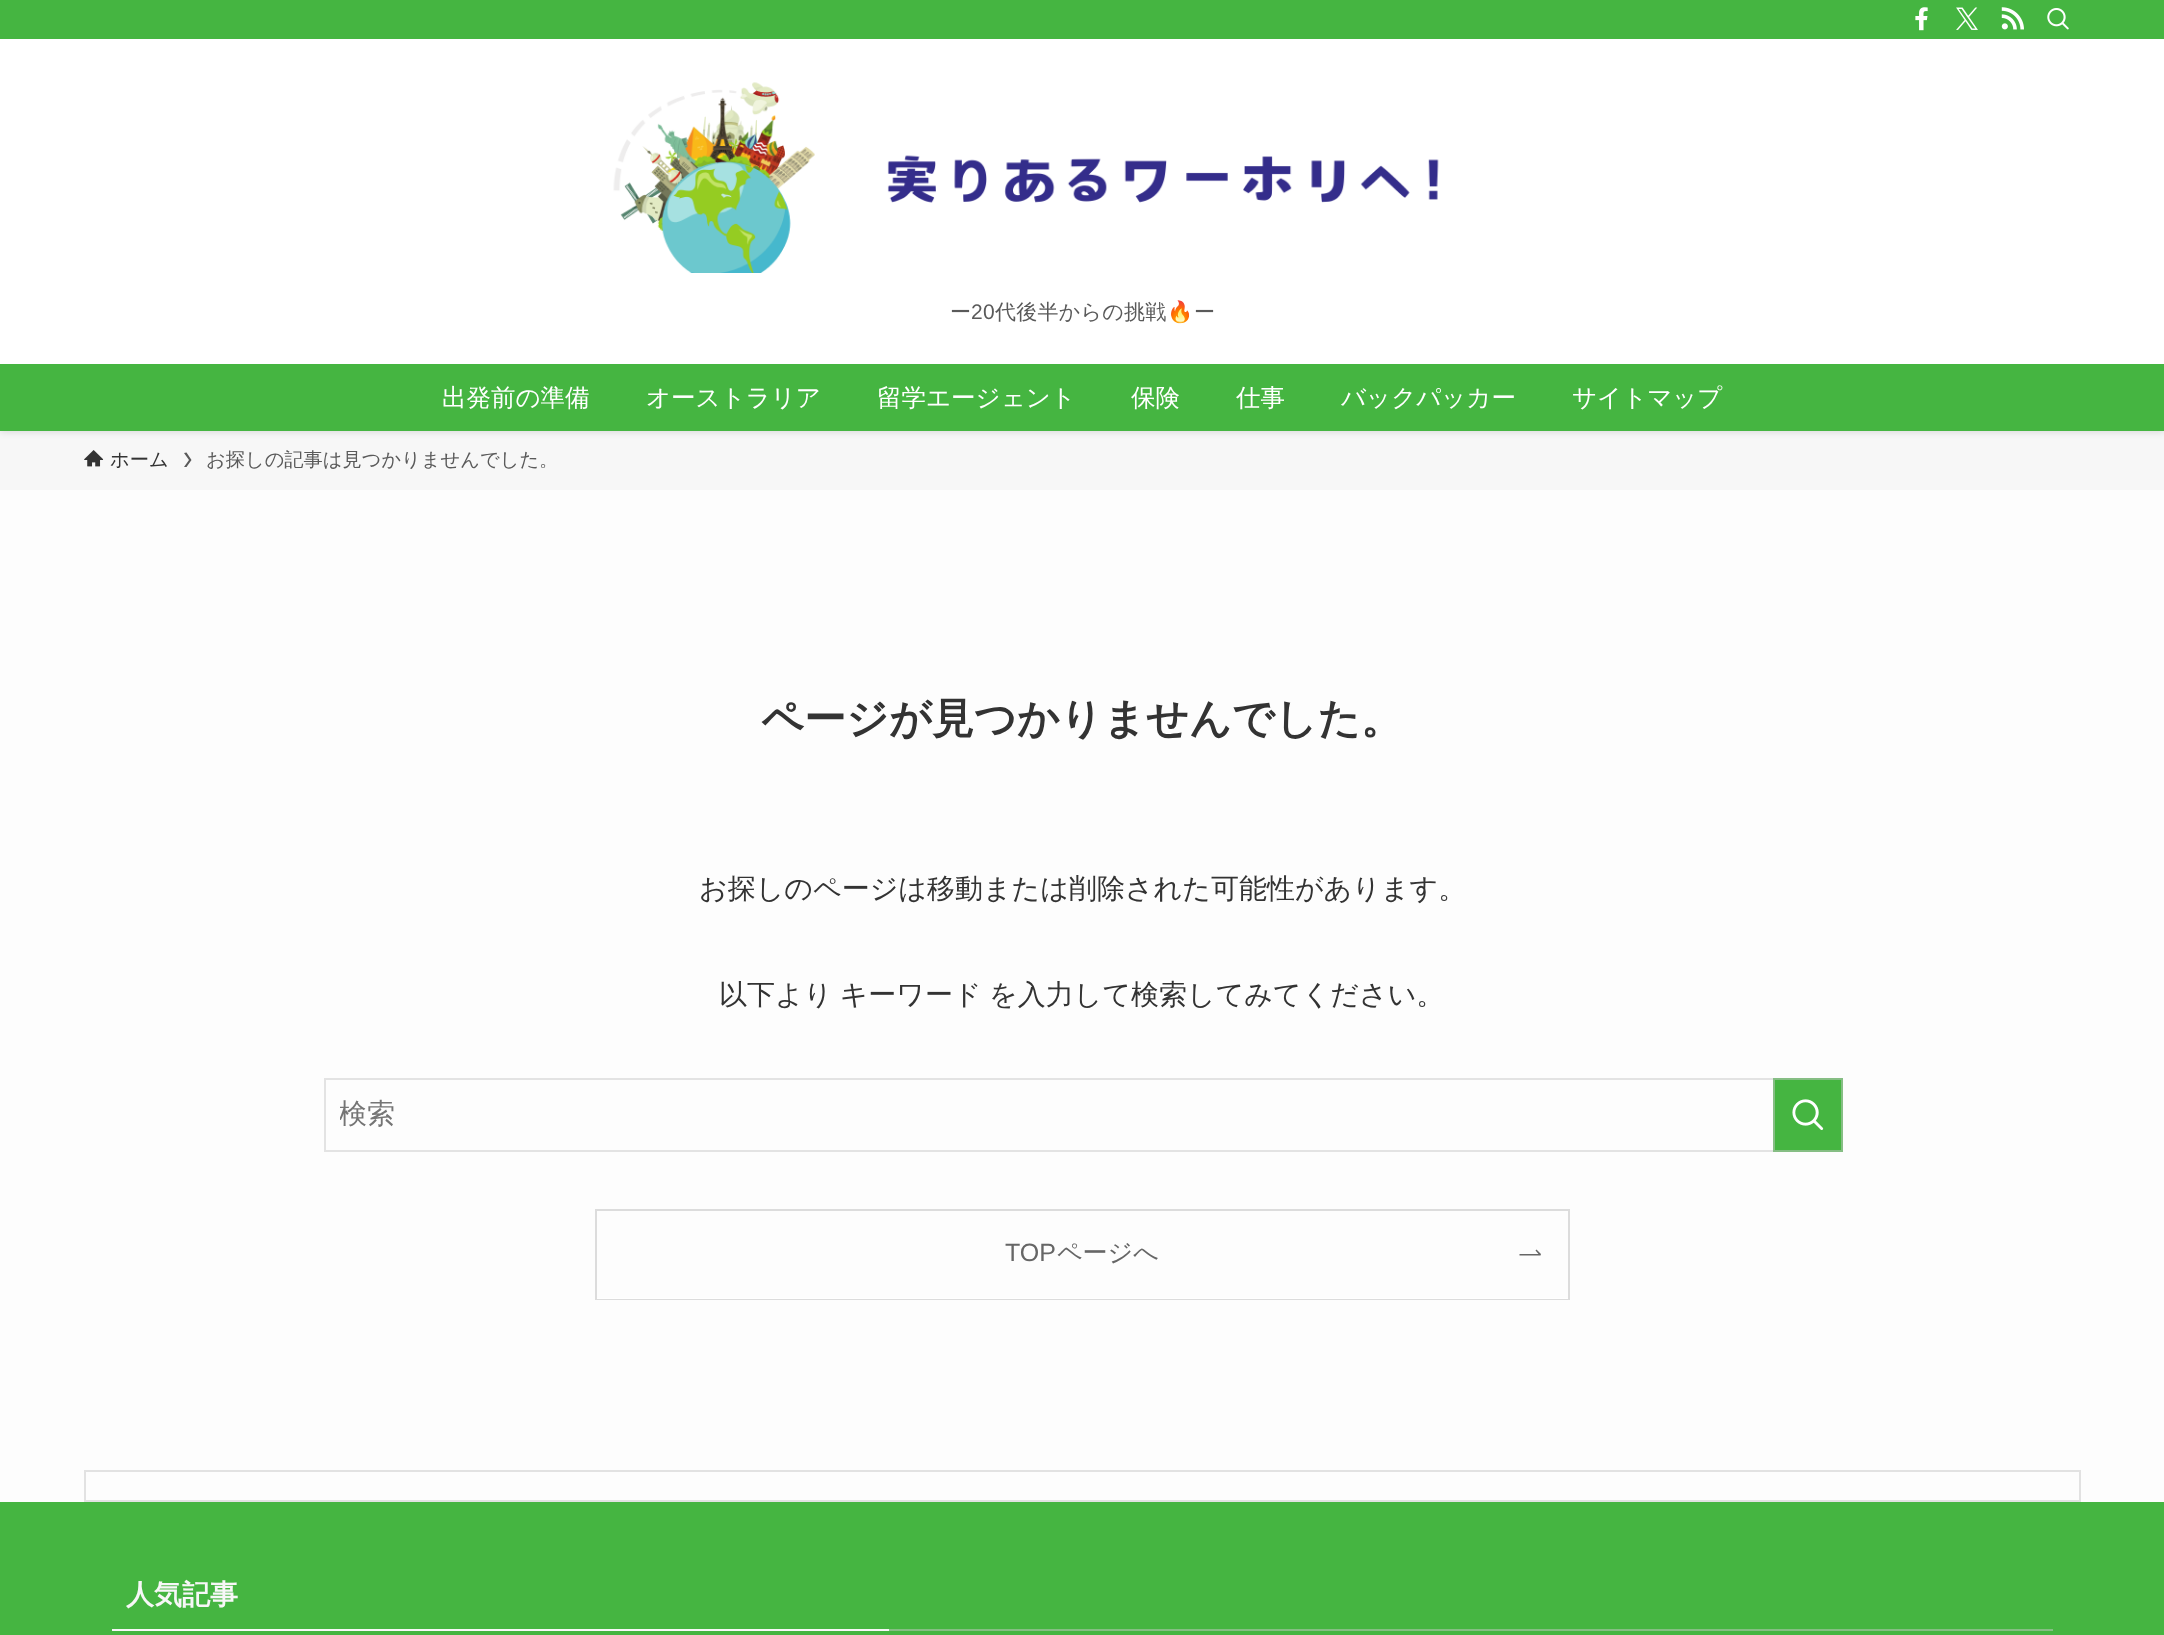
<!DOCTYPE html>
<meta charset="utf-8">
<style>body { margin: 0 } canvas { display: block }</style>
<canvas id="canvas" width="2164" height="1635"></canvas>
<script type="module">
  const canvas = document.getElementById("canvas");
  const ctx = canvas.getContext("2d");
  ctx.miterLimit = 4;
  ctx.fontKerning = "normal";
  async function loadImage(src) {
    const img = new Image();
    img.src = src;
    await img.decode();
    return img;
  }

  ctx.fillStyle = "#fdfdfd";
  ctx.fillRect(0, 0, 2164, 1635);
  ctx.fillStyle = "#f7f7f7";
  ctx.fillRect(0, 431, 2164, 59);
  ctx.fillStyle = "rgba(0, 0, 0, 0.12)";
  ctx.filter = "blur(3.5px)";
  ctx.beginPath();
  ctx.rect(0, 2, 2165, 430);
  ctx.fill();
  ctx.filter = "none";
  ctx.fillStyle = "#ffffff";
  ctx.fillRect(0, 39, 2164, 325);
  ctx.fillStyle = "#45b541";
  ctx.fillRect(0, 0, 2164, 39);
  ctx.drawImage(await loadImage("img1.png"), 1915, 7, 13, 24);
  ctx.drawImage(await loadImage("img2.png"), 1956, 7, 22, 23);
  ctx.drawImage(await loadImage("img3.png"), 2001, 7, 23, 23);
  ctx.drawImage(await loadImage("img4.png"), 2047, 8, 22, 22);
  ctx.drawImage(await loadImage("img5.png"), 613, 82, 826, 191);
  ctx.letterSpacing = "0.25px";
  ctx.font = "500 21px WenQuanYi Zen Hei";
  ctx.fillStyle = "#5a5a5a";
  ctx.fillText("ー", 950, 319);
  ctx.font = "21px Liberation Sans";
  ctx.fillText("20", 971, 319);
  ctx.font = "500 21px WenQuanYi Zen Hei";
  ctx.fillText("代後半からの挑戦", 995, 319);
  ctx.font = "21px Noto Color Emoji";
  ctx.fillText("🔥", 1167, 319);
  ctx.font = "500 21px WenQuanYi Zen Hei";
  ctx.fillText("ー", 1194, 319);
  ctx.fillStyle = "#45b541";
  ctx.fillRect(0, 364, 2164, 67);
  ctx.letterSpacing = "0px";
  ctx.font = "500 24.5px WenQuanYi Zen Hei";
  ctx.fillStyle = "#ffffff";
  ctx.fillText("出発前の準備", 442, 406);
  ctx.fillText("オーストラリア", 646, 406);
  ctx.fillText("留学エージェント", 877, 406);
  ctx.fillText("保険", 1131, 406);
  ctx.fillText("仕事", 1236, 406);
  ctx.fillText("バックパッカー", 1341, 406);
  ctx.fillText("サイトマップ", 1572, 406);
  ctx.drawImage(await loadImage("img6.png"), 84, 450, 20, 17);
  ctx.font = "500 19.25px WenQuanYi Zen Hei";
  ctx.fillStyle = "#333333";
  ctx.fillText("ホーム", 110, 466);
  ctx.fillStyle = "#5a5a5a";
  ctx.beginPath();
  ctx.moveTo(186.5, 452.5);
  ctx.lineTo(184, 453);
  ctx.lineTo(189, 460);
  ctx.lineTo(184, 467);
  ctx.lineTo(186.5, 467);
  ctx.lineTo(191.5, 460);
  ctx.closePath();
  ctx.fill();
  ctx.fillText("お探しの記事は見つかりませんでした。", 206, 466);
  ctx.font = "bold 42px WenQuanYi Zen Hei";
  ctx.fillStyle = "#333333";
  ctx.fillText("ページが見つかりませんでした。", 761, 733);
  ctx.font = "500 28px WenQuanYi Zen Hei";
  ctx.fillText("お探しのページは移動または削除された可能性があります。", 699, 898);
  ctx.wordSpacing = "-1px";
  ctx.fillText("以下より キーワード を入力して検索してみてください。", 719, 1004);
  ctx.strokeStyle = "#e3e3e3";
  ctx.lineWidth = 2;
  ctx.strokeRect(325, 1079, 1517, 72);
  ctx.save();
  ctx.beginPath();
  ctx.rect(340, 1097, 1424, 37);
  ctx.clip();
  ctx.wordSpacing = "0px";
  ctx.fillStyle = "#757575";
  ctx.fillText("検索", 339, 1123);
  ctx.restore();
  ctx.fillStyle = "#45b541";
  ctx.beginPath();
  ctx.rect(1774, 1079, 68, 72);
  ctx.fill();
  ctx.strokeStyle = "#86be84";
  ctx.stroke();
  ctx.drawImage(await loadImage("img7.png"), 1792, 1099, 32, 31);
  ctx.strokeStyle = "#dcdcdc";
  ctx.strokeRect(596, 1210, 973, 89);
  ctx.fillStyle = "#ffffff";
  ctx.fillRect(597, 1298, 971, 1);
  ctx.wordSpacing = "0px";
  ctx.font = "25px Liberation Sans";
  ctx.fillStyle = "#666666";
  ctx.fillText("TOP", 1005, 1261);
  ctx.font = "500 25px WenQuanYi Zen Hei";
  ctx.fillText("ページへ", 1057, 1261);
  ctx.beginPath();
  ctx.moveTo(1540.5, 1255.5);
  ctx.lineTo(1519.5, 1255.5);
  ctx.lineTo(1519.5, 1254);
  ctx.lineTo(1538.5, 1254);
  ctx.lineTo(1535.5, 1250.5);
  ctx.lineTo(1536.5, 1249.5);
  ctx.lineTo(1541, 1254);
  ctx.closePath();
  ctx.fill();
  ctx.strokeStyle = "#e2e2e2";
  ctx.strokeRect(85, 1471, 1995, 30);
  ctx.fillStyle = "#45b541";
  ctx.fillRect(0, 1502, 2164, 133);
  ctx.font = "bold 28px WenQuanYi Zen Hei";
  ctx.fillStyle = "#f7f7f7";
  ctx.fillText("人気記事", 126, 1604);
  ctx.fillRect(112, 1629, 777, 2);
  ctx.fillStyle = "#86be84";
  ctx.fillRect(889, 1629, 1164, 2);
</script>
